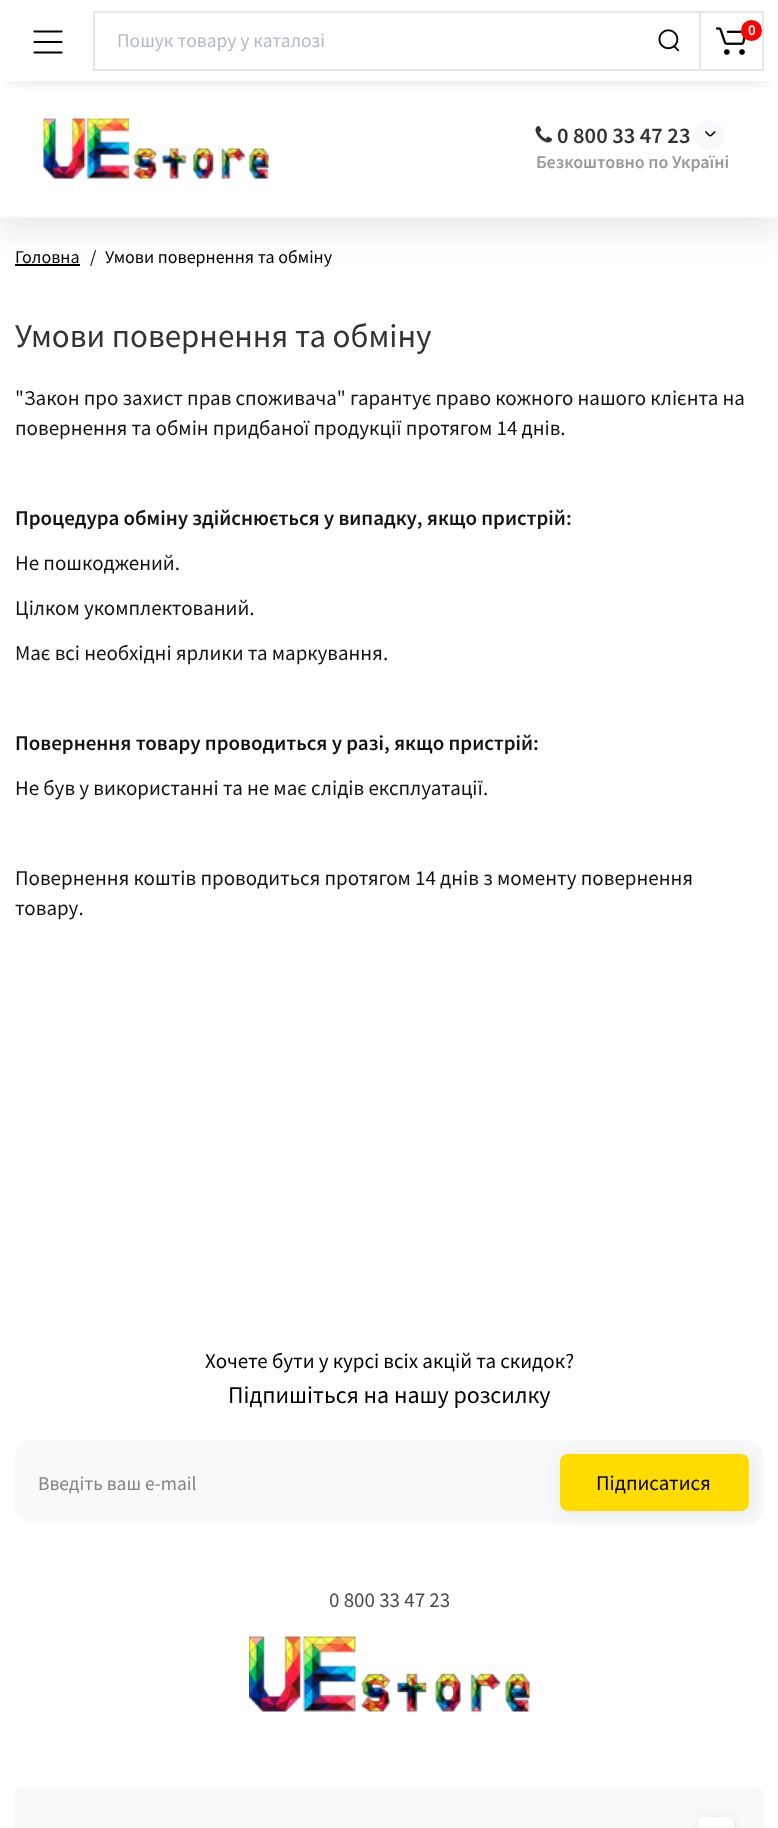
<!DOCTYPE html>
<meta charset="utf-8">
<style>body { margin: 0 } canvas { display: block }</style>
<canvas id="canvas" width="778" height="1828"></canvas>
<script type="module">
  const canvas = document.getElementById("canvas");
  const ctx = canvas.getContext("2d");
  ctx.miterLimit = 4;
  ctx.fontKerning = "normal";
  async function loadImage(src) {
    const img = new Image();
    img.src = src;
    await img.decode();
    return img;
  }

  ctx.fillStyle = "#ffffff";
  ctx.fillRect(0, 0, 778, 1828);
  ctx.fillStyle = "rgba(50, 50, 50, 0.1)";
  ctx.filter = "blur(15px)";
  ctx.beginPath();
  ctx.rect(0, 15, 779, 218);
  ctx.fill();
  ctx.filter = "none";
  ctx.fillStyle = "#ffffff";
  ctx.fillRect(0, 0, 778, 216);
  ctx.fillStyle = "#f8f9fa";
  ctx.fillRect(0, 216, 778, 2);
  ctx.save();
  ctx.beginPath();
  ctx.rect(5, 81, 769, 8);
  ctx.clip();
  ctx.fillStyle = "rgba(0, 0, 0, 0.4)";
  ctx.filter = "blur(11px)";
  ctx.beginPath();
  ctx.rect(11, 11, 757, 60);
  ctx.fill();
  ctx.filter = "none";
  ctx.restore();
  ctx.beginPath();
  ctx.moveTo(34.5, 31.5);
  ctx.lineTo(61.5, 31.5);
  ctx.moveTo(34.5, 42);
  ctx.lineTo(61.5, 42);
  ctx.moveTo(34.5, 52.5);
  ctx.lineTo(61.5, 52.5);
  ctx.strokeStyle = "#000000";
  ctx.lineWidth = 2.2;
  ctx.lineCap = "round";
  ctx.lineJoin = "round";
  ctx.stroke();
  ctx.fillStyle = "#e6e6e6";
  ctx.fillRect(93, 11, 671, 2);
  ctx.fillRect(699, 11, 2, 60);
  ctx.fillRect(93, 69, 608, 2);
  ctx.drawImage(await loadImage("img1.png"), 658, 29, 22, 23);
  ctx.fillRect(93, 11, 2, 60);
  ctx.font = "19.5px Source Sans Pro";
  ctx.fillStyle = "#b2bbc5";
  ctx.fillText("Пошук товару у каталозі", 117, 47);
  ctx.fillStyle = "#e6e6e6";
  ctx.fillRect(762, 11, 2, 60);
  ctx.fillRect(701, 69, 63, 2);
  ctx.drawImage(await loadImage("img2.png"), 716, 27, 30, 28);
  ctx.fillStyle = "#ff0000";
  ctx.beginPath();
  ctx.arc(751.5, 30.5, 10.5, 0, Math.PI * 2);
  ctx.fill();
  ctx.font = "600 15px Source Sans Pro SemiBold";
  ctx.fillStyle = "#ffffff";
  ctx.fillText("0", 748, 35);
  ctx.drawImage(await loadImage("img3.png"), 43, 118, 226, 61);
  ctx.drawImage(await loadImage("img4.png"), 535, 126, 17, 17);
  ctx.font = "600 22.5px Source Sans Pro SemiBold";
  ctx.fillStyle = "#333333";
  ctx.fillText("0 800 33 47 23", 557, 143);
  ctx.fillStyle = "#f8f9fa";
  ctx.beginPath();
  ctx.arc(710, 135, 15, 0, Math.PI * 2);
  ctx.fill();
  ctx.drawImage(await loadImage("img5.png"), 705, 131, 11, 6);
  ctx.font = "600 18px Source Sans Pro SemiBold";
  ctx.fillStyle = "#999999";
  ctx.fillText("Безкоштовно по Україні", 536, 168);
  ctx.font = "18px Source Sans Pro";
  ctx.fillStyle = "#000000";
  ctx.fillText("Головна", 15, 263);
  ctx.fillRect(15, 264, 65, 2);
  ctx.fillText("/", 90, 263);
  ctx.fillText("Умови повернення та обміну", 105, 263);
  ctx.font = "33px Source Sans Pro";
  ctx.fillStyle = "#333333";
  ctx.fillText("Умови повернення та обміну", 15, 347);
  ctx.font = "21px Source Sans Pro";
  ctx.fillStyle = "#141414";
  ctx.fillText("\"Закон про захист прав споживача\" гарантує право кожного нашого клієнта на", 15, 405);
  ctx.fillText("повернення та обмін придбаної продукції протягом 14 днів.", 15, 435);
  ctx.font = "600 21px Source Sans Pro SemiBold";
  ctx.fillText("Процедура обміну здійснюється у випадку, якщо пристрій:", 15, 525);
  ctx.font = "21px Source Sans Pro";
  ctx.fillText("Не пошкоджений.", 15, 570);
  ctx.fillText("Цілком укомплектований.", 15, 615);
  ctx.fillText("Має всі необхідні ярлики та маркування.", 15, 660);
  ctx.font = "600 21px Source Sans Pro SemiBold";
  ctx.fillText("Повернення товару проводиться у разі, якщо пристрій:", 15, 750);
  ctx.font = "21px Source Sans Pro";
  ctx.fillText("Не був у використанні та не має слідів експлуатації.", 15, 795);
  ctx.fillText("Повернення коштів проводиться протягом 14 днів з моменту повернення", 15, 885);
  ctx.fillText("товару.", 15, 915);
  ctx.fillStyle = "#000000";
  ctx.fillText("Хочете бути у курсі всіх акцій та скидок?", 205, 1368);
  ctx.font = "24px Source Sans Pro";
  ctx.fillText("Підпишіться на нашу розсилку", 228, 1403);
  ctx.fillStyle = "#f8f9fa";
  ctx.beginPath();
  ctx.roundRect(15, 1440, 546, 84, [18, 0, 0, 18]);
  ctx.fill();
  ctx.font = "19.5px Source Sans Pro";
  ctx.fillStyle = "#838383";
  ctx.fillText("Введіть ваш e-mail", 38, 1490);
  ctx.fillStyle = "#f8f9fa";
  ctx.beginPath();
  ctx.roundRect(561, 1440, 203, 84, [0, 18, 18, 0]);
  ctx.fill();
  ctx.fillStyle = "rgba(0, 0, 0, 0.07)";
  ctx.filter = "blur(9px)";
  ctx.beginPath();
  ctx.roundRect(563, 1457, 189, 57, 8);
  ctx.fill();
  ctx.filter = "none";
  ctx.fillStyle = "#ffdc00";
  ctx.beginPath();
  ctx.roundRect(560, 1454, 189, 57, 8);
  ctx.fill();
  ctx.font = "21px Source Sans Pro";
  ctx.fillStyle = "#000000";
  ctx.fillText("Підписатися", 596, 1490);
  ctx.fillStyle = "#4b4b4b";
  ctx.fillText("0 800 33 47 23", 329, 1607);
  ctx.drawImage(await loadImage("img6.png"), 249, 1636, 281, 76);
  ctx.fillStyle = "#f8f9fa";
  ctx.beginPath();
  ctx.roundRect(15, 1787, 749, 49, 8);
  ctx.fill();
  ctx.fillStyle = "rgba(0, 0, 0, 0.07)";
  ctx.filter = "blur(4px)";
  ctx.beginPath();
  ctx.roundRect(699, 1818, 36, 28, 6);
  ctx.fill();
  ctx.filter = "none";
  ctx.fillStyle = "#ffffff";
  ctx.beginPath();
  ctx.roundRect(698, 1817, 36, 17, 6);
  ctx.fill();
</script>
